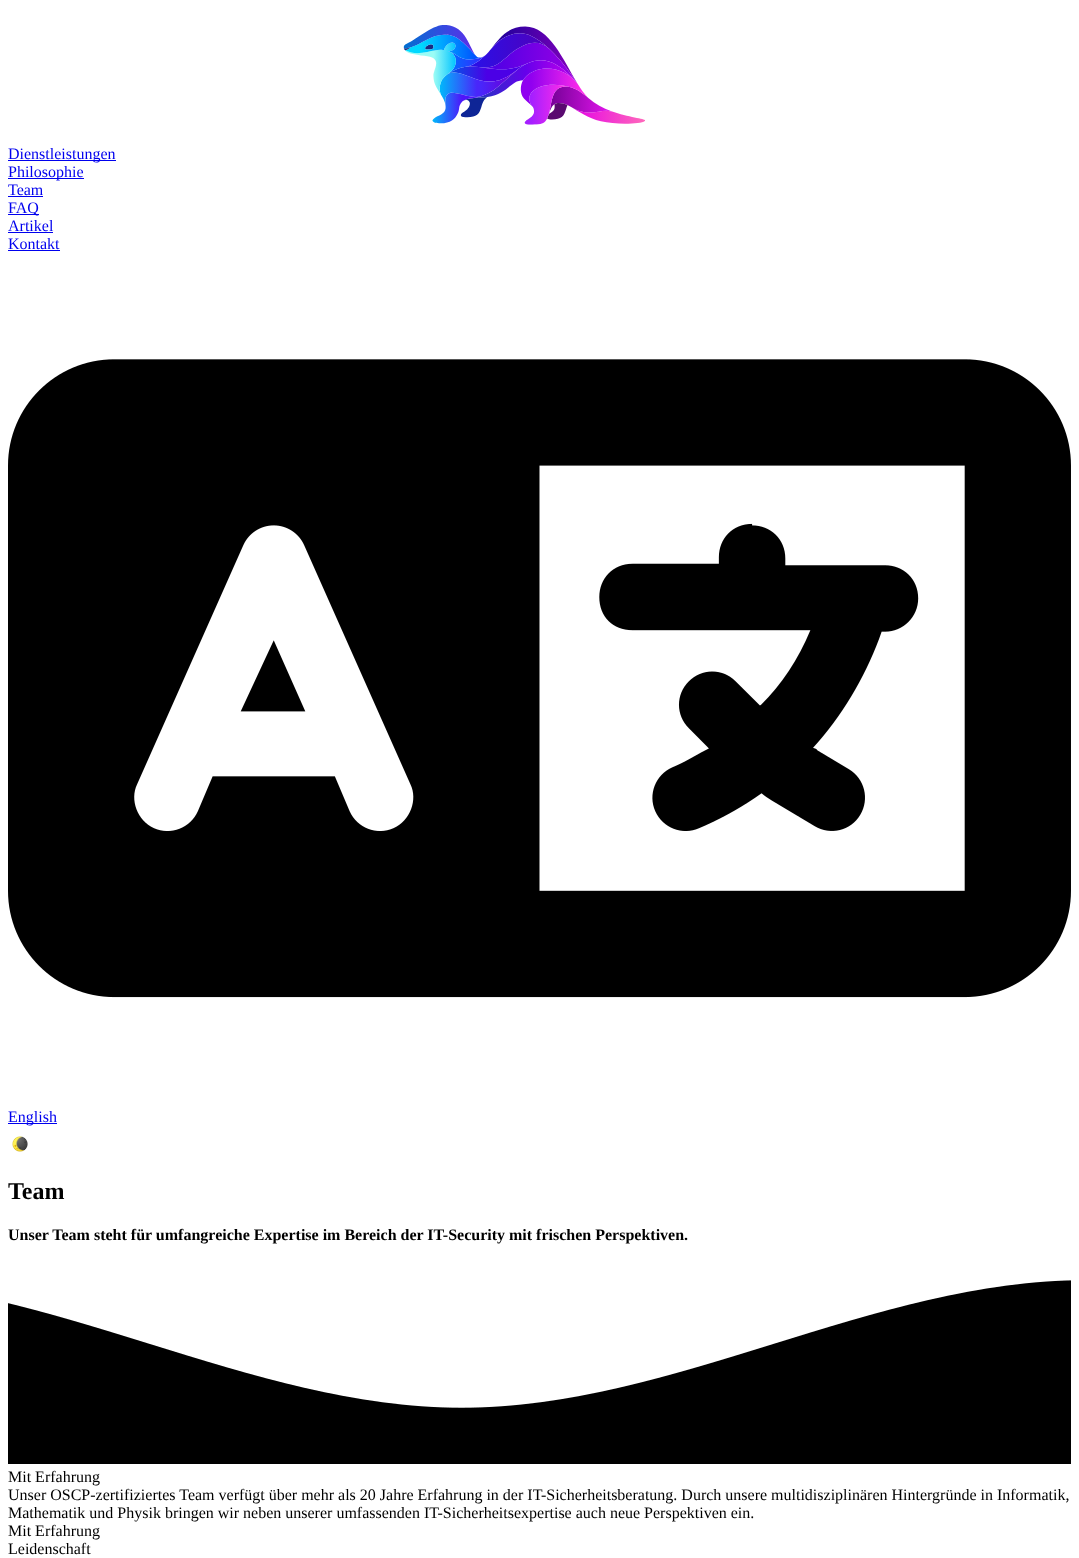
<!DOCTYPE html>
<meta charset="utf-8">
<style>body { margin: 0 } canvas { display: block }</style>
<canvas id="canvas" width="1079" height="1558"></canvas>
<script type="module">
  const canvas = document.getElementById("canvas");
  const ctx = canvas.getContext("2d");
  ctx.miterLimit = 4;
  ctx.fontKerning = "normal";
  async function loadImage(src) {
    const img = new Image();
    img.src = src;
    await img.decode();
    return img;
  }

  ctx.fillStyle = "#ffffff";
  ctx.fillRect(0, 0, 1079, 1558);
  ctx.drawImage(await loadImage("img1.png"), 403, 25, 242, 100);
  ctx.fillStyle = "#0000ee";
  ctx.fillRect(8, 160, 108, 1);
  ctx.font = "16px Liberation Serif";
  ctx.fillText("Dienstleistungen", 8, 159);
  ctx.fillRect(8, 178, 76, 1);
  ctx.fillText("Philosophie", 8, 177);
  ctx.fillText("Team", 8, 195);
  ctx.fillRect(8, 196, 35, 1);
  ctx.fillRect(8, 214, 31, 1);
  ctx.fillText("FAQ", 8, 213);
  ctx.fillText("Artikel", 8, 231);
  ctx.fillRect(8, 232, 45, 1);
  ctx.fillText("Kontakt", 8, 249);
  ctx.fillRect(8, 250, 52, 1);
  ctx.drawImage(await loadImage("img2.png"), 8, 359, 1063, 639);
  ctx.fillRect(8, 1123, 49, 1);
  ctx.fillText("English", 8, 1122);
  ctx.drawImage(await loadImage("img3.png"), 12, 1136, 16, 16);
  ctx.font = "bold 24px Liberation Serif";
  ctx.fillStyle = "#000000";
  ctx.fillText("Team", 8, 1199);
  ctx.font = "bold 16px Liberation Serif";
  ctx.fillText("Unser Team steht für umfangreiche Expertise im Bereich der IT-Security mit frischen Perspektiven.", 8, 1240);
  ctx.drawImage(await loadImage("img4.png"), 8, 1280, 1063, 184);
  ctx.font = "16px Liberation Serif";
  ctx.fillText("Mit Erfahrung", 8, 1482);
  ctx.fillText("Unser OSCP-zertifiziertes Team verfügt über mehr als 20 Jahre Erfahrung in der IT-Sicherheitsberatung. Durch unsere multidisziplinären Hintergründe in Informatik,", 8, 1500);
  ctx.fillText("Mathematik und Physik bringen wir neben unserer umfassenden IT-Sicherheitsexpertise auch neue Perspektiven ein.", 8, 1518);
  ctx.fillText("Mit Erfahrung", 8, 1536);
  ctx.fillText("Leidenschaft", 8, 1554);
</script>
